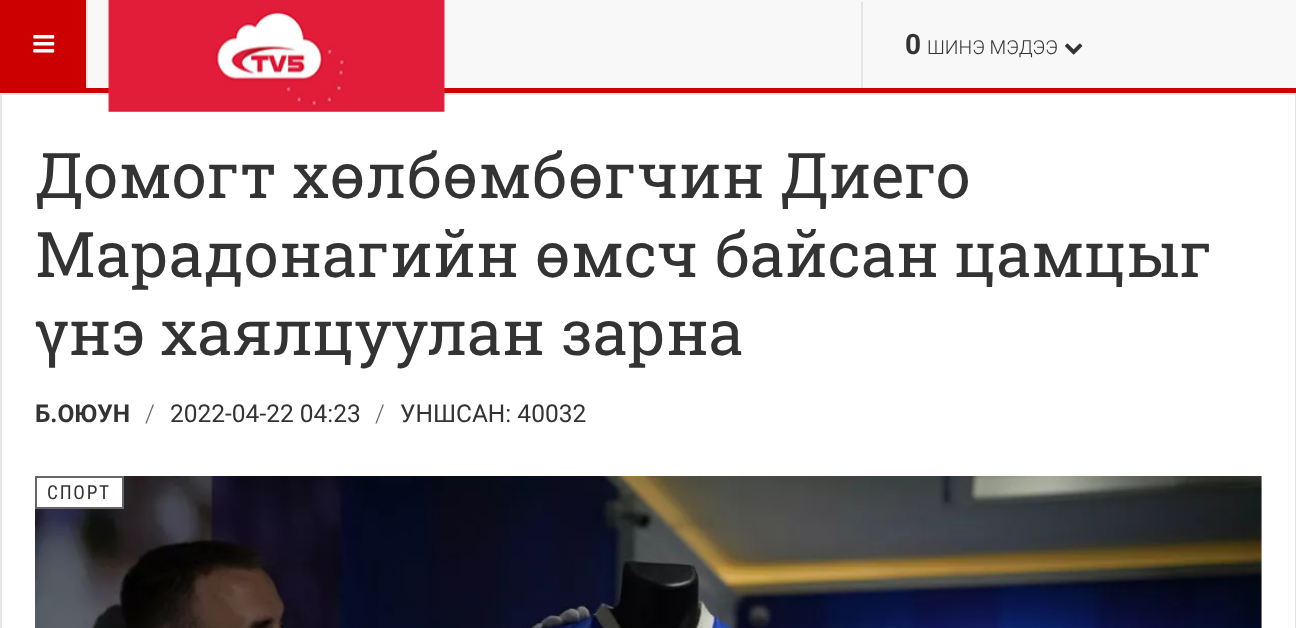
<!DOCTYPE html>
<meta charset="utf-8">
<style>body { margin: 0 } canvas { display: block }</style>
<canvas id="canvas" width="1296" height="628"></canvas>
<script type="module">
  const canvas = document.getElementById("canvas");
  const ctx = canvas.getContext("2d");
  ctx.miterLimit = 4;
  ctx.fontKerning = "normal";
  async function loadImage(src) {
    const img = new Image();
    img.src = src;
    await img.decode();
    return img;
  }

  ctx.fillStyle = "#ffffff";
  ctx.fillRect(0, 0, 1296, 628);
  ctx.fillStyle = "#f8f8f8";
  ctx.fillRect(88, 0, 1208, 88);
  ctx.fillStyle = "#cc0000";
  ctx.fillRect(0, 88, 1296, 5);
  ctx.fillRect(0, 0, 86, 88);
  ctx.fillStyle = "#e5e5e5";
  ctx.fillRect(86, 0, 2, 88);
  ctx.drawImage(await loadImage("img1.png"), 33, 35, 22, 18);
  ctx.strokeStyle = "#e5e5e5";
  ctx.lineWidth = 2;
  ctx.strokeRect(1, 94, 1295, 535);
  ctx.drawImage(await loadImage("img2.png"), 108, 0, 337, 112);
  ctx.fillRect(861, 2, 2, 86);
  ctx.font = "bold 28px Roboto";
  ctx.fillStyle = "#333333";
  ctx.fillText("0", 905, 54);
  ctx.font = "300 19.25px Roboto";
  ctx.fillText("ШИНЭ МЭДЭЭ", 927, 54);
  ctx.drawImage(await loadImage("img3.png"), 1065, 43, 18, 12);
  ctx.font = "63px Roboto Slab";
  ctx.fillText("Домогт хөлбөмбөгчин Диего", 35, 198);
  ctx.fillText("Марадонагийн өмсч байсан цамцыг", 35, 277);
  ctx.fillText("үнэ хаялцуулан зарна", 35, 355);
  ctx.font = "bold 24.5px Roboto";
  ctx.fillText("Б.ОЮУН", 35, 422);
  ctx.font = "300 24.5px Roboto";
  ctx.fillStyle = "#666666";
  ctx.fillText("/", 145, 422);
  ctx.font = "24.5px Roboto";
  ctx.fillStyle = "#333333";
  ctx.fillText("2022-04-22 04:23", 170, 422);
  ctx.font = "300 24.5px Roboto";
  ctx.fillStyle = "#666666";
  ctx.fillText("/", 375, 422);
  ctx.font = "24.5px Roboto";
  ctx.fillStyle = "#333333";
  ctx.fillText("УНШСАН: 40032", 400, 422);
  ctx.drawImage(await loadImage("img4.png"), 35, 476, 1227, 152);
  ctx.fillStyle = "#ffffff";
  ctx.beginPath();
  ctx.rect(36, 477, 87, 31);
  ctx.fill();
  ctx.strokeStyle = "#666666";
  ctx.stroke();
  ctx.letterSpacing = "1.75px";
  ctx.font = "19.25px Roboto Condensed";
  ctx.fillStyle = "#333333";
  ctx.fillText("СПОРТ", 47, 499);
</script>
